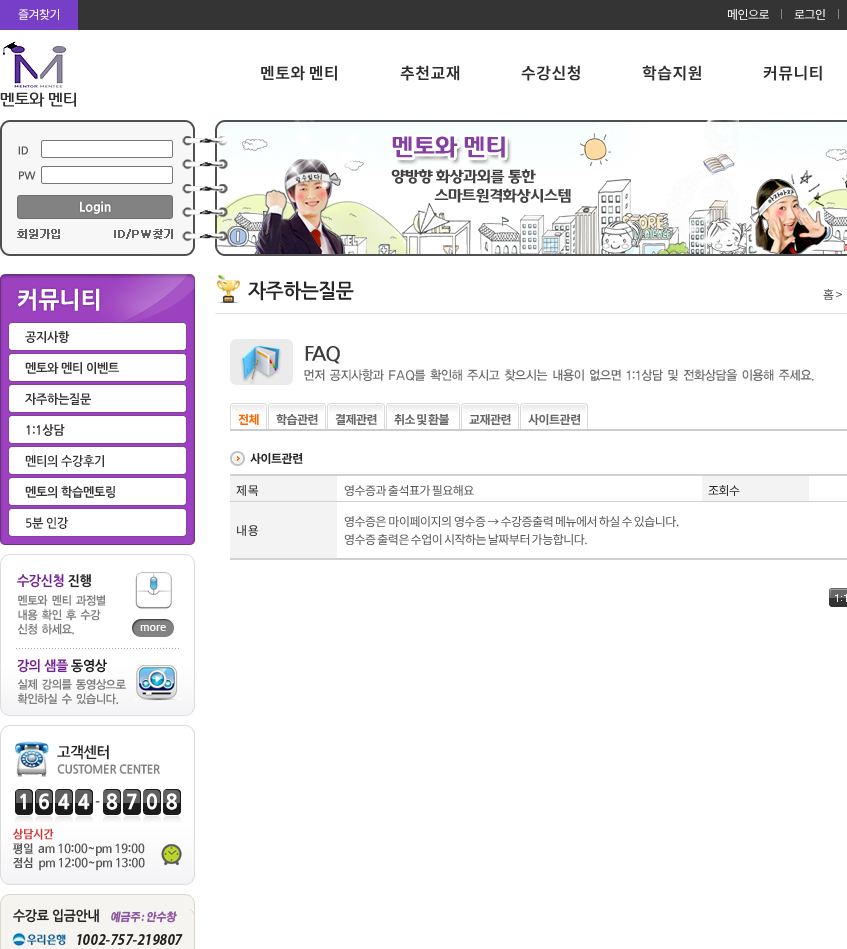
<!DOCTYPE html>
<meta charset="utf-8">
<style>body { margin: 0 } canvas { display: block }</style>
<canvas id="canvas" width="847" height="949"></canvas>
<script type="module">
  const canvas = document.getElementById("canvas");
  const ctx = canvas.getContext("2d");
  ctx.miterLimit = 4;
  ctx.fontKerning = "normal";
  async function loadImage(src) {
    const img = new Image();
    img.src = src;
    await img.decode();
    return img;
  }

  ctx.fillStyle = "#ffffff";
  ctx.fillRect(0, 0, 847, 949);
  ctx.fillStyle = "#343434";
  ctx.fillRect(78, 0, 769, 30);
  ctx.fillStyle = "#773ec7";
  ctx.fillRect(0, 0, 78, 30);
  ctx.letterSpacing = "-0.5px";
  ctx.font = "12px Noto Sans KR";
  ctx.fillStyle = "#ffffff";
  ctx.fillText("즐겨찾기", 18, 19);
  ctx.fillStyle = "#858585";
  ctx.fillRect(781, 9, 1, 10);
  ctx.fillStyle = "#ffffff";
  ctx.fillText("메인으로", 727, 19);
  ctx.fillStyle = "#858585";
  ctx.fillRect(838, 9, 1, 10);
  ctx.fillStyle = "#ffffff";
  ctx.fillText("로그인", 794, 19);
  ctx.drawImage(await loadImage("img1.png"), 0, 40, 76, 67);
  ctx.letterSpacing = "0.5px";
  ctx.wordSpacing = "-1px";
  ctx.font = "600 16px Noto Sans KR";
  ctx.fillStyle = "#2d2d2d";
  ctx.fillText("멘토와 멘티", 260, 79);
  ctx.wordSpacing = "0px";
  ctx.fillText("추천교재", 400, 79);
  ctx.fillText("수강신청", 521, 79);
  ctx.fillText("학습지원", 642, 79);
  ctx.fillText("커뮤니티", 763, 79);
  ctx.drawImage(await loadImage("img2.png"), 0, 120, 195, 136);
  ctx.drawImage(await loadImage("img3.png"), 18, 146, 18, 34);
  ctx.fillStyle = "#ffffff";
  ctx.beginPath();
  ctx.roundRect(41.5, 140.5, 131, 17, 1.5);
  ctx.fill();
  ctx.strokeStyle = "#767676";
  ctx.stroke();
  ctx.beginPath();
  ctx.roundRect(41.5, 166.5, 131, 17, 1.5);
  ctx.fill();
  ctx.stroke();
  ctx.drawImage(await loadImage("img4.png"), 17, 195, 156, 24);
  ctx.drawImage(await loadImage("img5.png"), 17, 229, 43, 10);
  ctx.drawImage(await loadImage("img6.png"), 114, 229, 59, 10);
  ctx.drawImage(await loadImage("img7.png"), 0, 274, 195, 48);
  ctx.drawImage(await loadImage("img8.png"), 0, 322, 195, 31);
  ctx.drawImage(await loadImage("img9.png"), 0, 353, 195, 31);
  ctx.drawImage(await loadImage("img10.png"), 0, 384, 195, 31);
  ctx.drawImage(await loadImage("img11.png"), 0, 415, 195, 31);
  ctx.drawImage(await loadImage("img12.png"), 0, 446, 195, 31);
  ctx.drawImage(await loadImage("img13.png"), 0, 477, 195, 31);
  ctx.drawImage(await loadImage("img14.png"), 0, 508, 195, 31);
  ctx.drawImage(await loadImage("img15.png"), 0, 539, 195, 6);
  ctx.drawImage(await loadImage("img16.png"), 0, 554, 195, 95);
  ctx.drawImage(await loadImage("img17.png"), 0, 649, 195, 67);
  ctx.drawImage(await loadImage("img18.png"), 0, 725, 195, 160);
  ctx.drawImage(await loadImage("img19.png"), 0, 894, 195, 55);
  ctx.drawImage(await loadImage("img20.png"), 195, 138, 20, 101);
  ctx.drawImage(await loadImage("img21.png"), 215, 120, 632, 136);
  ctx.drawImage(await loadImage("img22.png"), 216, 275, 138, 28);
  ctx.letterSpacing = "-0.5px";
  ctx.font = "12px Noto Sans KR";
  ctx.fillStyle = "#585858";
  ctx.fillText("홈 >", 823, 299);
  ctx.fillStyle = "#e5e5e5";
  ctx.fillRect(215, 313, 632, 1);
  ctx.drawImage(await loadImage("img23.png"), 230, 339, 584, 46);
  ctx.drawImage(await loadImage("img24.png"), 230, 403, 8, 26);
  ctx.drawImage(await loadImage("img25.png"), 238, 403, 21, 9);
  ctx.font = "bold 12px Noto Sans KR";
  ctx.fillStyle = "#ff6600";
  ctx.fillText("전체", 238, 424);
  ctx.drawImage(await loadImage("img26.png"), 259, 403, 8, 26);
  ctx.drawImage(await loadImage("img24.png"), 268, 403, 8, 26);
  ctx.drawImage(await loadImage("img27.png"), 276, 403, 42, 9);
  ctx.fillStyle = "#666666";
  ctx.fillText("학습관련", 276, 424);
  ctx.drawImage(await loadImage("img26.png"), 318, 403, 8, 26);
  ctx.drawImage(await loadImage("img24.png"), 327, 403, 8, 26);
  ctx.drawImage(await loadImage("img27.png"), 335, 403, 42, 9);
  ctx.fillText("결제관련", 335, 424);
  ctx.drawImage(await loadImage("img26.png"), 377, 403, 8, 26);
  ctx.drawImage(await loadImage("img24.png"), 386, 403, 8, 26);
  ctx.drawImage(await loadImage("img28.png"), 394, 403, 58, 9);
  ctx.wordSpacing = "-1px";
  ctx.fillText("취소 및 환불", 394, 424);
  ctx.drawImage(await loadImage("img26.png"), 452, 403, 8, 26);
  ctx.drawImage(await loadImage("img24.png"), 461, 403, 8, 26);
  ctx.drawImage(await loadImage("img27.png"), 469, 403, 42, 9);
  ctx.wordSpacing = "0px";
  ctx.fillText("교재관련", 469, 424);
  ctx.drawImage(await loadImage("img26.png"), 511, 403, 8, 26);
  ctx.drawImage(await loadImage("img24.png"), 520, 403, 8, 26);
  ctx.drawImage(await loadImage("img29.png"), 528, 403, 52, 9);
  ctx.fillText("사이트관련", 528, 424);
  ctx.drawImage(await loadImage("img26.png"), 580, 403, 8, 26);
  ctx.fillStyle = "#cccccc";
  ctx.fillRect(230, 429, 617, 2);
  ctx.drawImage(await loadImage("img30.png"), 230, 451, 15, 15);
  ctx.fillStyle = "#272727";
  ctx.fillText("사이트관련", 250, 463);
  ctx.fillStyle = "#d1d1d1";
  ctx.fillRect(230, 474, 617, 2);
  ctx.fillStyle = "#f3f3f3";
  ctx.fillRect(230, 476, 107, 25);
  ctx.wordSpacing = "-1px";
  ctx.font = "12px Noto Sans KR";
  ctx.fillStyle = "#272727";
  ctx.fillText("제 목", 236, 495);
  ctx.wordSpacing = "-0.5px";
  ctx.fillStyle = "#585858";
  ctx.fillText("영수증과 출석표가 필요해요", 344, 495);
  ctx.fillStyle = "#f3f3f3";
  ctx.fillRect(702, 476, 107, 25);
  ctx.wordSpacing = "0px";
  ctx.fillStyle = "#272727";
  ctx.fillText("조회수", 708, 495);
  ctx.fillStyle = "#d1d1d1";
  ctx.fillRect(230, 501, 617, 1);
  ctx.fillStyle = "#f3f3f3";
  ctx.fillRect(230, 502, 107, 56);
  ctx.wordSpacing = "-1px";
  ctx.fillStyle = "#272727";
  ctx.fillText("내 용", 236, 535);
  ctx.wordSpacing = "0px";
  ctx.fillStyle = "#585858";
  ctx.fillText("영수증은 마이페이지의", 344, 526);
  ctx.wordSpacing = "-0.5px";
  ctx.fillText("영수증 → 수강증출력 메뉴에서 하실 수 있습니다.", 454, 526);
  ctx.fillText("영수증 출력은 수업이 시작하는 날짜부터 가능합니다.", 344, 544);
  ctx.fillStyle = "#d1d1d1";
  ctx.fillRect(230, 558, 617, 2);
  ctx.drawImage(await loadImage("img31.png"), 829, 588, 18, 19);
</script>
